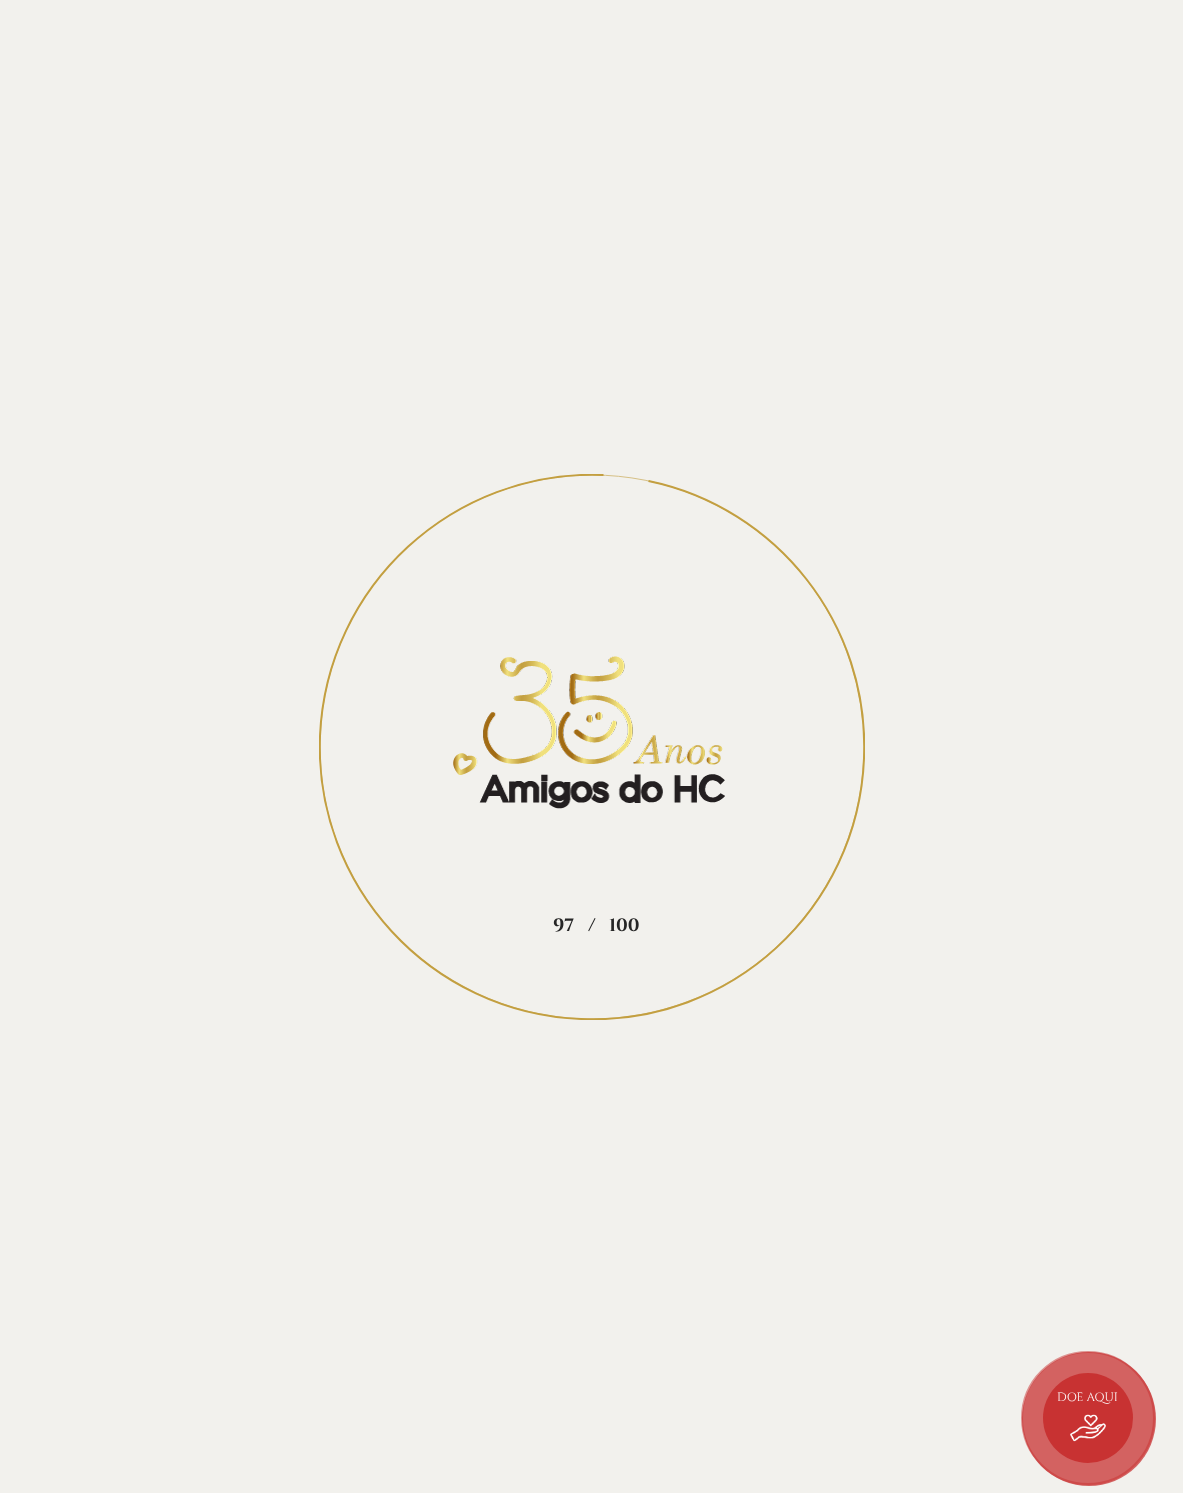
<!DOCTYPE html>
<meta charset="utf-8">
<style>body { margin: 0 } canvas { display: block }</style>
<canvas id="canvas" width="1183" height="1493"></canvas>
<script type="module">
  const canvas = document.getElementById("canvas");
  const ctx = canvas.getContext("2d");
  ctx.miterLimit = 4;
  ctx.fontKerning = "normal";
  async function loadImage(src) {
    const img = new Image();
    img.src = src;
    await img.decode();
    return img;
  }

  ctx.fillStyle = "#f2f1ed";
  ctx.fillRect(0, 0, 1183, 1493);
  ctx.drawImage(await loadImage("img1.png"), 453, 656, 272, 153);
  ctx.font = "bold 18px Cinzel";
  ctx.fillStyle = "#262626";
  ctx.fillText("97", 553, 931);
  ctx.fillText("/", 588, 931);
  ctx.fillText("100", 609, 931);
  ctx.beginPath();
  ctx.arc(592, 747, 272, 0, Math.PI * 2);
  ctx.strokeStyle = "#d6c085";
  ctx.stroke();
  ctx.save();
  ctx.beginPath();
  ctx.rect(319, 474, 546, 546);
  ctx.clip();
  ctx.beginPath();
  ctx.moveTo(648.5, 481);
  ctx.bezierCurveTo(776.5, 507.5, 870, 624, 864, 758.5);
  ctx.bezierCurveTo(858, 909, 731, 1025.5, 581, 1019);
  ctx.bezierCurveTo(430.5, 1013, 314, 886, 320, 736);
  ctx.bezierCurveTo(326.5, 585.5, 453.5, 469, 603.5, 475);
  ctx.strokeStyle = "#c39f40";
  ctx.lineWidth = 2;
  ctx.stroke();
  ctx.restore();
  ctx.beginPath();
  ctx.arc(1088, 1418, 66, 0, Math.PI * 2);
  ctx.strokeStyle = "#dd9290";
  ctx.lineWidth = 2;
  ctx.stroke();
  ctx.fillStyle = "rgba(200, 50, 50, 0.75)";
  ctx.beginPath();
  ctx.arc(1089, 1419, 67, 0, Math.PI * 2);
  ctx.fill();
  ctx.fillStyle = "#c83232";
  ctx.beginPath();
  ctx.arc(1088, 1418, 45, 0, Math.PI * 2);
  ctx.fill();
  ctx.font = "12px Cinzel";
  ctx.fillStyle = "#ffffff";
  ctx.fillText("DOE AQUI", 1057, 1401);
  ctx.drawImage(await loadImage("img2.png"), 1070, 1414, 36, 28);
</script>
